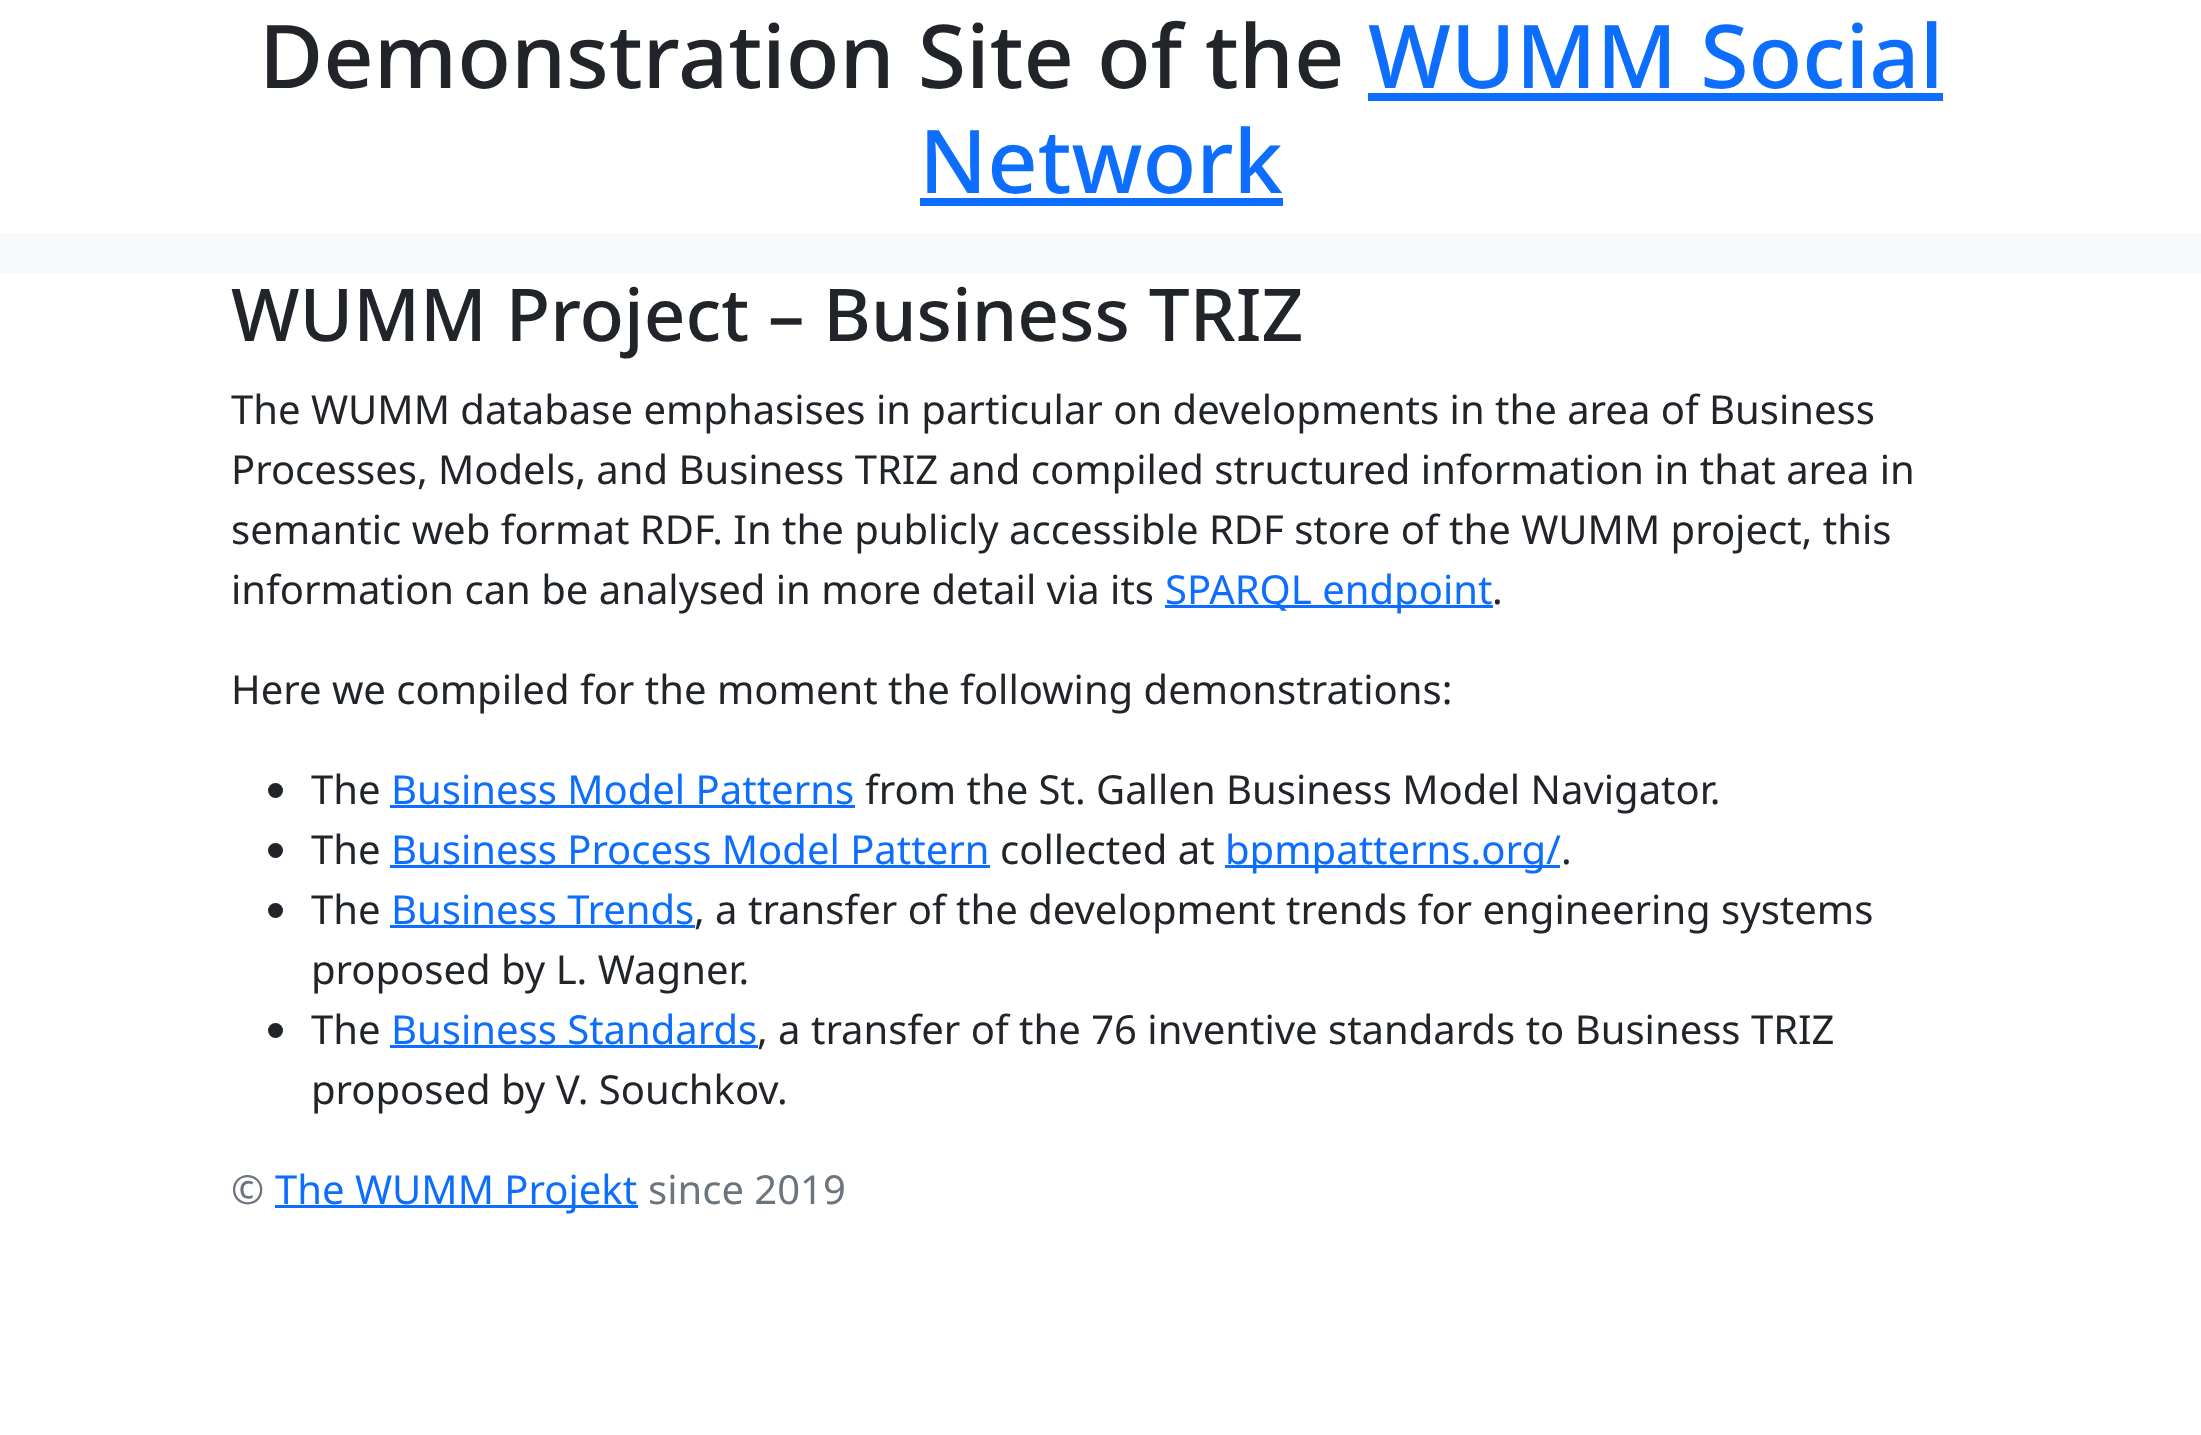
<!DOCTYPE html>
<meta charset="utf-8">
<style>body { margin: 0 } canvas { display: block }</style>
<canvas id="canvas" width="2201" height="1435"></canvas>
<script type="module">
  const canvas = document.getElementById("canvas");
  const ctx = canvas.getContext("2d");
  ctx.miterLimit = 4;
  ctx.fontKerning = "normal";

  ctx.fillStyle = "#ffffff";
  ctx.fillRect(0, 0, 2201, 1435);
  ctx.font = "500 88px Noto Sans";
  ctx.fillStyle = "#212529";
  ctx.fillText("Demonstration Site of the", 259, 88);
  ctx.fillStyle = "#0d6efd";
  ctx.fillText("WUMM Social", 1368, 88);
  ctx.fillRect(1368, 93, 575, 8);
  ctx.fillText("Network", 919, 193);
  ctx.fillRect(920, 198, 363, 8);
  ctx.fillStyle = "#f8f9fa";
  ctx.fillRect(0, 233, 2201, 40);
  ctx.font = "500 72.8px Noto Sans";
  ctx.fillStyle = "#212529";
  ctx.fillText("WUMM Project – Business TRIZ", 231, 341);
  ctx.font = "40px Noto Sans";
  ctx.fillText("The WUMM database emphasises in particular on developments in the area of Business", 231, 424);
  ctx.fillText("Processes, Models, and Business TRIZ and compiled structured information in that area in", 231, 484);
  ctx.fillText("semantic web format RDF. In the publicly accessible RDF store of the WUMM project, this", 231, 544);
  ctx.fillText("information can be analysed in more detail via its", 231, 604);
  ctx.fillStyle = "#0d6efd";
  ctx.fillRect(1165, 605, 328, 3);
  ctx.fillText("SPARQL endpoint", 1165, 604);
  ctx.fillStyle = "#212529";
  ctx.fillText(".", 1492, 604);
  ctx.fillText("Here we compiled for the moment the following demonstrations:", 231, 704);
  ctx.beginPath();
  ctx.arc(275.5, 790.5, 7.5, 0, Math.PI * 2);
  ctx.fill();
  ctx.fillText("The", 311, 804);
  ctx.fillStyle = "#0d6efd";
  ctx.fillText("Business Model Patterns", 391, 804);
  ctx.fillRect(390, 805, 465, 3);
  ctx.fillStyle = "#212529";
  ctx.fillText("from the St. Gallen Business Model Navigator.", 865, 804);
  ctx.beginPath();
  ctx.arc(275.5, 850.5, 7.5, 0, Math.PI * 2);
  ctx.fill();
  ctx.fillText("The", 311, 864);
  ctx.fillStyle = "#0d6efd";
  ctx.fillText("Business Process Model Pattern", 391, 864);
  ctx.fillRect(390, 865, 600, 3);
  ctx.fillStyle = "#212529";
  ctx.fillText("collected at", 1000, 864);
  ctx.fillStyle = "#0d6efd";
  ctx.fillRect(1225, 865, 335, 3);
  ctx.fillText("bpmpatterns.org/", 1225, 864);
  ctx.fillStyle = "#212529";
  ctx.fillText(".", 1561, 864);
  ctx.beginPath();
  ctx.arc(275.5, 910.5, 7.5, 0, Math.PI * 2);
  ctx.fill();
  ctx.fillText("The", 311, 924);
  ctx.fillStyle = "#0d6efd";
  ctx.fillText("Business Trends", 391, 924);
  ctx.fillRect(390, 925, 305, 3);
  ctx.fillStyle = "#212529";
  ctx.fillText(", a transfer of the development trends for engineering systems", 694, 924);
  ctx.fillText("proposed by L. Wagner.", 311, 984);
  ctx.beginPath();
  ctx.arc(275.5, 1030.5, 7.5, 0, Math.PI * 2);
  ctx.fill();
  ctx.fillText("The", 311, 1044);
  ctx.fillStyle = "#0d6efd";
  ctx.fillText("Business Standards", 391, 1044);
  ctx.fillRect(390, 1045, 368, 3);
  ctx.fillStyle = "#212529";
  ctx.fillText(", a transfer of the 76 inventive standards to Business TRIZ", 757, 1044);
  ctx.fillText("proposed by V. Souchkov.", 311, 1104);
  ctx.fillStyle = "#6c757d";
  ctx.fillText("©", 231, 1204);
  ctx.fillStyle = "#0d6efd";
  ctx.fillRect(275, 1205, 363, 3);
  ctx.fillText("The WUMM Projekt", 275, 1204);
  ctx.fillStyle = "#6c757d";
  ctx.fillText("since 2019", 648, 1204);
</script>
